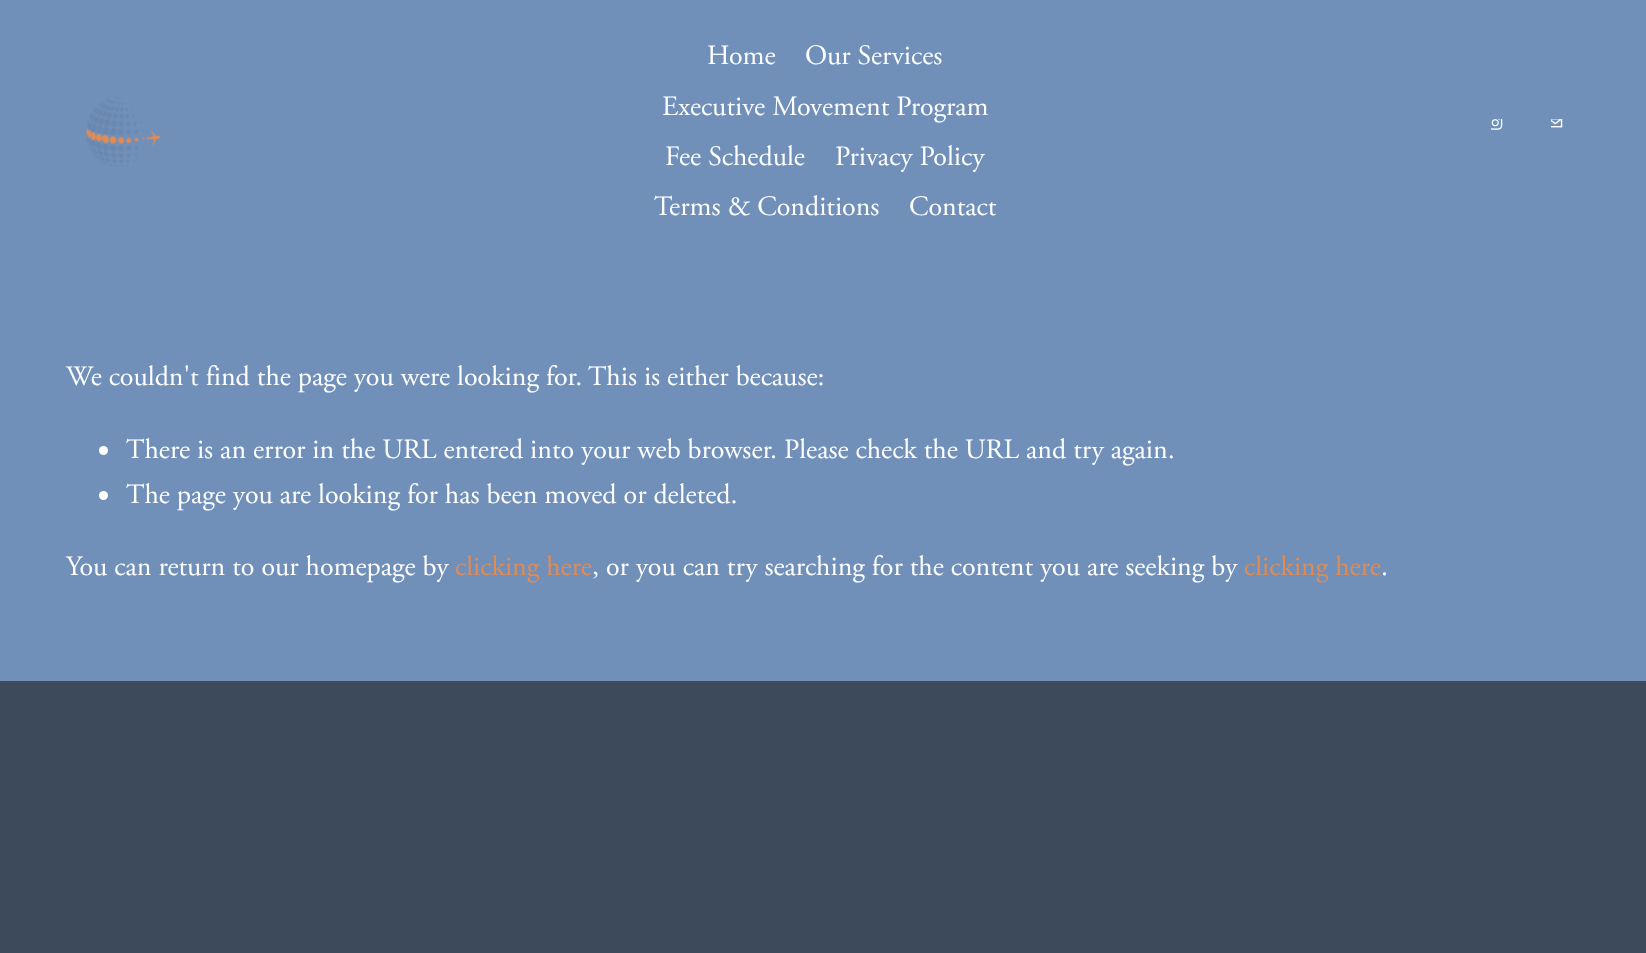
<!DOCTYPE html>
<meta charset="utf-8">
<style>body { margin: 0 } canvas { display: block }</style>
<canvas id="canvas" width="1646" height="953"></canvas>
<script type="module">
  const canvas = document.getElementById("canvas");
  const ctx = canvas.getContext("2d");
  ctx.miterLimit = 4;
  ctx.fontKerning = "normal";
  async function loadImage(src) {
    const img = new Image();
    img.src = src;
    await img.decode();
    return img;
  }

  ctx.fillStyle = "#7090ba";
  ctx.fillRect(0, 0, 1646, 953);
  ctx.drawImage(await loadImage("img1.png"), 86, 96, 75, 71);
  ctx.font = "27.95px Adobe Garamond";
  ctx.fillStyle = "#ffffff";
  ctx.fillText("Home", 707, 64);
  ctx.fillText("Our Services", 805, 64);
  ctx.fillText("Executive Movement Program", 662, 115);
  ctx.fillText("Fee Schedule", 665, 165);
  ctx.fillText("Privacy Policy", 835, 165);
  ctx.fillText("Terms & Conditions", 654, 215);
  ctx.fillText("Contact", 909, 215);
  ctx.drawImage(await loadImage("img2.png"), 1491, 119, 12, 11);
  ctx.drawImage(await loadImage("img3.png"), 1551, 119, 12, 9);
  ctx.fillText("We couldn't find the page you were looking for. This is either because:", 66, 385);
  ctx.beginPath();
  ctx.arc(103.5, 450.5, 4.5, 0, Math.PI * 2);
  ctx.fill();
  ctx.fillText("There is an error in the URL entered into your web browser. Please check the URL and try again.", 126, 458);
  ctx.beginPath();
  ctx.arc(103.5, 495.5, 4.5, 0, Math.PI * 2);
  ctx.fill();
  ctx.fillText("The page you are looking for has been moved or deleted.", 126, 503);
  ctx.fillText("You can return to our homepage by", 66, 575);
  ctx.fillStyle = "#e08b54";
  ctx.fillText("clicking here", 455, 575);
  ctx.fillStyle = "#ffffff";
  ctx.fillText(", or you can try searching for the content you are seeking by", 592, 575);
  ctx.fillStyle = "#e08b54";
  ctx.fillText("clicking here", 1244, 575);
  ctx.fillStyle = "#ffffff";
  ctx.fillText(".", 1381, 575);
  ctx.fillStyle = "#3d4a5b";
  ctx.fillRect(0, 681, 1646, 272);
</script>
